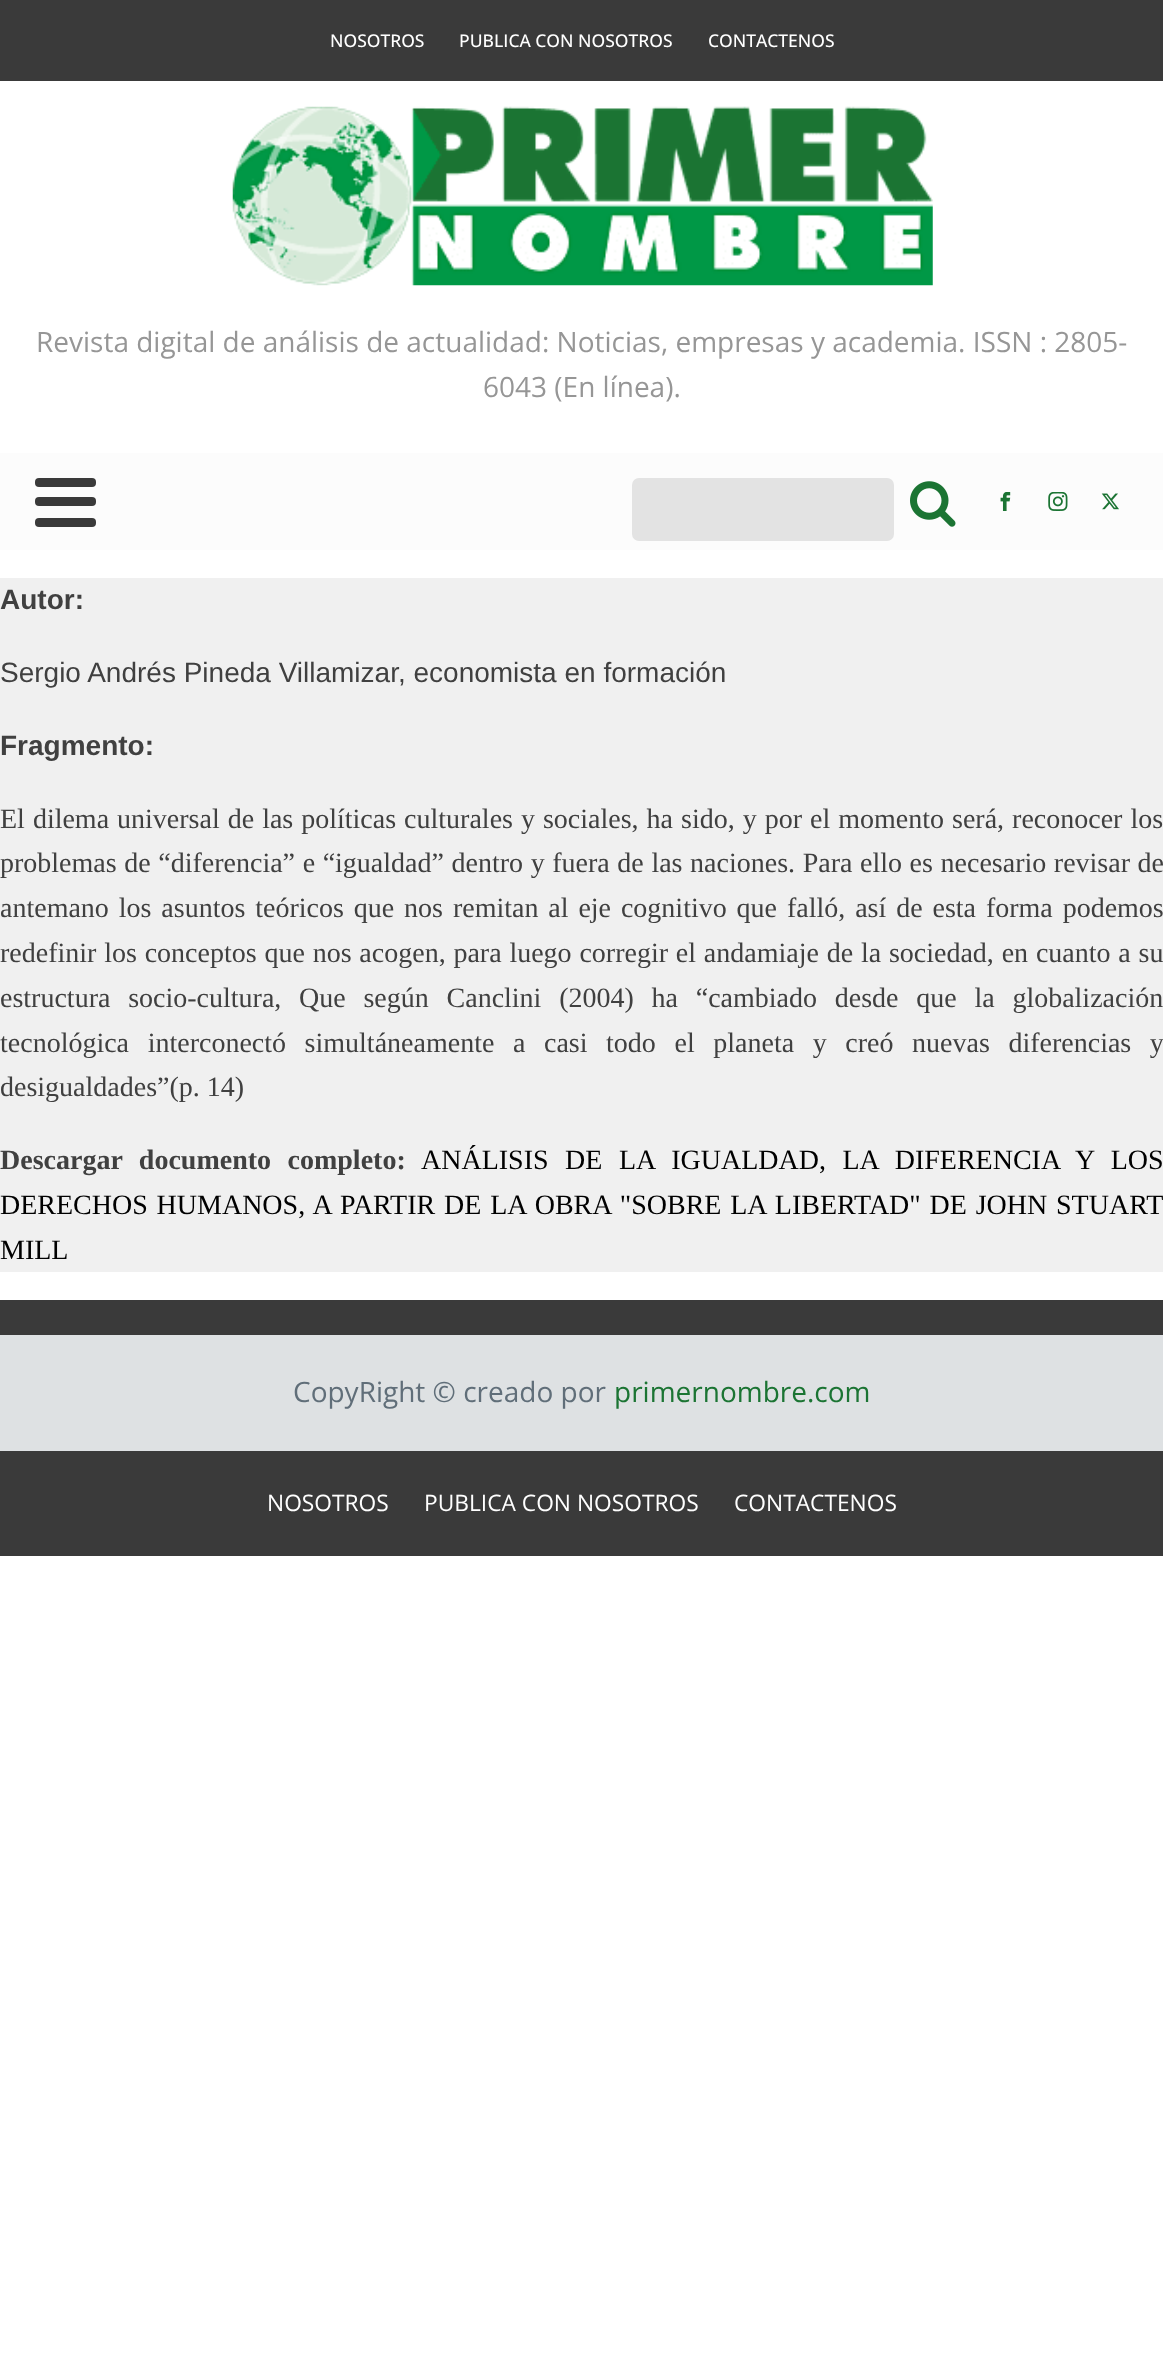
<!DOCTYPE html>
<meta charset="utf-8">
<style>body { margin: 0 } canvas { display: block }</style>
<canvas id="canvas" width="1163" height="2379"></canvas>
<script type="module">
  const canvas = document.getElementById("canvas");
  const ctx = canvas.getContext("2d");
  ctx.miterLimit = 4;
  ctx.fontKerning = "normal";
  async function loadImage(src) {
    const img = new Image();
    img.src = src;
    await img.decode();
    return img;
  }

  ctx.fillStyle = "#ffffff";
  ctx.fillRect(0, 0, 1163, 2379);
  ctx.fillStyle = "#3a3a3a";
  ctx.fillRect(0, 0, 1163, 81);
  ctx.font = "500 17.5px Open Sans";
  ctx.fillStyle = "#ffffff";
  ctx.fillText("NOSOTROS", 330, 47);
  ctx.fillText("PUBLICA CON NOSOTROS", 459, 47);
  ctx.fillText("CONTACTENOS", 708, 47);
  ctx.drawImage(await loadImage("img1.png"), 232, 106, 701, 180);
  ctx.font = "28px Open Sans";
  ctx.fillStyle = "#969696";
  ctx.fillText("Revista digital de análisis de actualidad: Noticias, empresas y academia. ISSN : 2805-", 36, 352);
  ctx.fillText("6043 (En línea).", 483, 397);
  ctx.fillStyle = "#fcfcfc";
  ctx.fillRect(0, 453, 1163, 97);
  ctx.fillStyle = "#3a3a3a";
  ctx.beginPath();
  ctx.roundRect(35, 478, 61, 9, 4);
  ctx.fill();
  ctx.beginPath();
  ctx.roundRect(35, 497, 61, 9, 4);
  ctx.fill();
  ctx.beginPath();
  ctx.roundRect(35, 518, 61, 9, 4);
  ctx.fill();
  ctx.fillStyle = "#e3e3e3";
  ctx.beginPath();
  ctx.roundRect(632, 478, 262, 63, 7);
  ctx.fill();
  ctx.drawImage(await loadImage("img2.png"), 910, 481, 46, 46);
  ctx.drawImage(await loadImage("img3.png"), 1000, 492, 11, 19);
  ctx.drawImage(await loadImage("img4.png"), 1048, 492, 20, 19);
  ctx.drawImage(await loadImage("img5.png"), 1101, 493, 18, 17);
  ctx.fillStyle = "#f0f0f0";
  ctx.fillRect(0, 578, 1163, 694);
  ctx.font = "bold 28px Liberation Sans";
  ctx.fillStyle = "#404040";
  ctx.fillText("Autor:", 0, 609);
  ctx.font = "28px Liberation Sans";
  ctx.fillText("Sergio Andrés Pineda Villamizar, economista en formación", 0, 682);
  ctx.font = "bold 28px Liberation Sans";
  ctx.fillText("Fragmento:", 0, 755);
  ctx.wordSpacing = "1px";
  ctx.font = "28px Liberation Serif";
  ctx.fillText("El dilema universal de las políticas culturales y sociales, ha sido, y por el momento será, reconocer los", 0, 828);
  ctx.wordSpacing = "0.6px";
  ctx.fillText("problemas de “diferencia” e “igualdad” dentro y fuera de las naciones. Para ello es necesario revisar de", 0, 872);
  ctx.wordSpacing = "2.9px";
  ctx.fillText("antemano los asuntos teóricos que nos remitan al eje cognitivo que falló, así de esta forma podemos", 0, 917);
  ctx.wordSpacing = "0.8px";
  ctx.fillText("redefinir los conceptos que nos acogen, para luego corregir el andamiaje de la sociedad, en cuanto a su", 0, 962);
  ctx.wordSpacing = "10.75px";
  ctx.fillText("estructura socio-cultura, Que según Canclini (2004) ha “cambiado desde que la globalización", 0, 1007);
  ctx.wordSpacing = "11.6px";
  ctx.fillText("tecnológica interconectó simultáneamente a casi todo el planeta y creó nuevas diferencias y", 0, 1052);
  ctx.wordSpacing = "0px";
  ctx.fillText("desigualdades”(p. 14)", 0, 1096);
  ctx.wordSpacing = "9.5px";
  ctx.font = "bold 28px Liberation Serif";
  ctx.fillText("Descargar documento completo:", 0, 1169);
  ctx.font = "28px Liberation Serif";
  ctx.fillStyle = "#000000";
  ctx.fillText("ANÁLISIS DE LA IGUALDAD, LA DIFERENCIA Y LOS", 421, 1169);
  ctx.wordSpacing = "1.8px";
  ctx.fillText("DERECHOS HUMANOS, A PARTIR DE LA OBRA \"SOBRE LA LIBERTAD\" DE JOHN STUART", 0, 1214);
  ctx.wordSpacing = "0px";
  ctx.fillText("MILL", 0, 1259);
  ctx.fillStyle = "#3a3a3a";
  ctx.fillRect(0, 1300, 1163, 256);
  ctx.fillStyle = "#dee1e3";
  ctx.fillRect(0, 1335, 1163, 116);
  ctx.font = "28px Open Sans";
  ctx.fillStyle = "#606e79";
  ctx.fillText("CopyRight © creado por", 293, 1402);
  ctx.fillStyle = "#1b7433";
  ctx.fillText("primernombre.com", 614, 1402);
  ctx.font = "22.75px Open Sans";
  ctx.fillStyle = "#ffffff";
  ctx.fillText("NOSOTROS", 267, 1511);
  ctx.fillText("PUBLICA CON NOSOTROS", 424, 1511);
  ctx.fillText("CONTACTENOS", 734, 1511);
</script>
